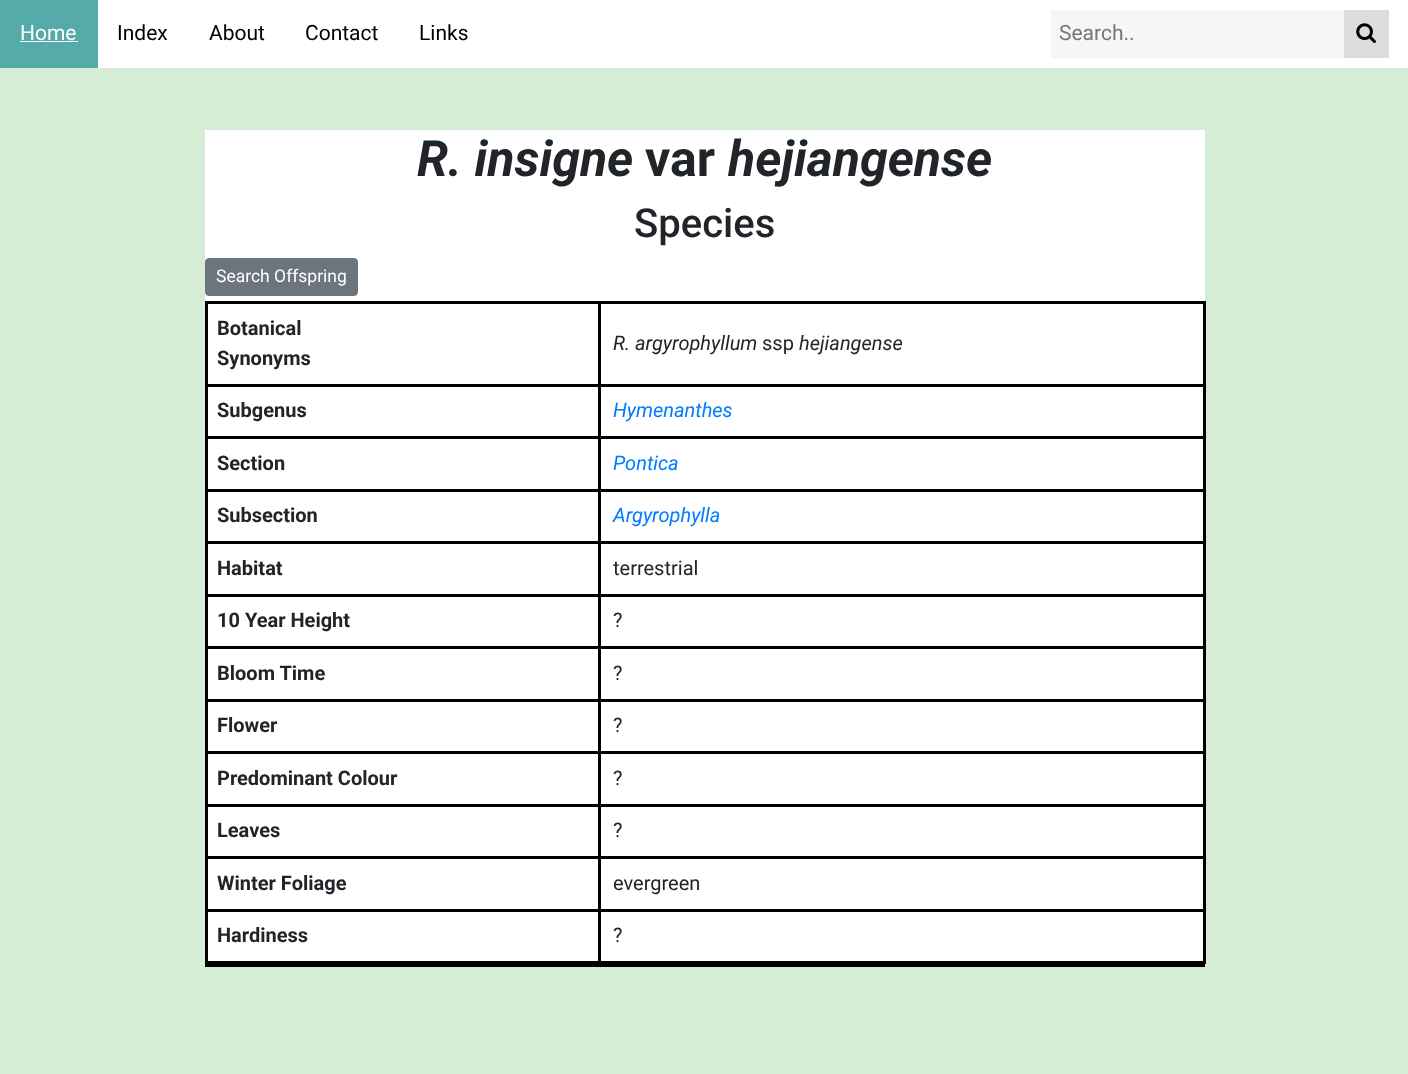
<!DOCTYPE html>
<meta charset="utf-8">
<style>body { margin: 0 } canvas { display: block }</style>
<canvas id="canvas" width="1408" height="1074"></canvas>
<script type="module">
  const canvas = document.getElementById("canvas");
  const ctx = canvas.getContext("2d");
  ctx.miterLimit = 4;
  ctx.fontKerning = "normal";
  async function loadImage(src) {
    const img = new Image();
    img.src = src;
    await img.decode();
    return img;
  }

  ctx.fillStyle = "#d5edd5";
  ctx.fillRect(0, 0, 1408, 1074);
  ctx.fillStyle = "#ffffff";
  ctx.fillRect(98, 0, 1310, 68);
  ctx.fillStyle = "#55aaaa";
  ctx.fillRect(0, 0, 98, 68);
  ctx.font = "21px Roboto";
  ctx.fillStyle = "#ffffff";
  ctx.fillText("Home", 20, 40);
  ctx.fillRect(20, 41, 58, 1);
  ctx.fillStyle = "#000000";
  ctx.fillText("Index", 117, 40);
  ctx.fillText("About", 209, 40);
  ctx.fillText("Contact", 305, 40);
  ctx.fillText("Links", 419, 40);
  ctx.fillStyle = "#f6f6f6";
  ctx.fillRect(1051, 10, 293, 48);
  ctx.fillStyle = "#757575";
  ctx.fillText("Search..", 1059, 40);
  ctx.fillStyle = "#dddddd";
  ctx.fillRect(1344, 10, 45, 48);
  ctx.drawImage(await loadImage("img1.png"), 1356, 23, 20, 20);
  ctx.fillStyle = "#ffffff";
  ctx.fillRect(205, 130, 1000, 831);
  ctx.font = "italic bold 50px Roboto";
  ctx.fillStyle = "#212529";
  ctx.fillText("R. insigne", 417, 176);
  ctx.font = "bold 50px Roboto";
  ctx.fillText("var", 645, 176);
  ctx.font = "italic bold 50px Roboto";
  ctx.fillText("hejiangense", 728, 176);
  ctx.font = "500 40px Roboto";
  ctx.fillText("Species", 634, 237);
  ctx.fillStyle = "#6c757d";
  ctx.beginPath();
  ctx.roundRect(205.5, 258.5, 152, 37, 3.5);
  ctx.fill();
  ctx.strokeStyle = "#6c757d";
  ctx.stroke();
  ctx.font = "17.5px Roboto";
  ctx.fillStyle = "#ffffff";
  ctx.fillText("Search Offspring", 216, 282);
  ctx.fillStyle = "#000000";
  ctx.fillRect(205, 301, 1000, 3);
  ctx.fillRect(1203, 301, 3, 663);
  ctx.fillRect(205, 961, 1000, 6);
  ctx.fillRect(205, 301, 3, 663);
  ctx.font = "bold 20px Roboto";
  ctx.fillStyle = "#212529";
  ctx.fillText("Botanical", 217, 335);
  ctx.fillText("Synonyms", 217, 365);
  ctx.fillStyle = "#000000";
  ctx.fillRect(598, 384, 607, 3);
  ctx.fillRect(598, 436, 607, 3);
  ctx.fillRect(598, 489, 607, 3);
  ctx.fillRect(598, 541, 607, 3);
  ctx.fillRect(598, 594, 607, 3);
  ctx.fillRect(598, 646, 607, 3);
  ctx.fillRect(598, 699, 607, 3);
  ctx.fillRect(598, 751, 607, 3);
  ctx.fillRect(598, 804, 607, 3);
  ctx.fillRect(598, 856, 607, 3);
  ctx.fillRect(598, 909, 607, 3);
  ctx.fillRect(598, 909, 3, 55);
  ctx.fillRect(205, 909, 395, 3);
  ctx.fillRect(598, 856, 3, 55);
  ctx.fillRect(205, 856, 395, 3);
  ctx.fillRect(598, 804, 3, 55);
  ctx.fillRect(205, 804, 395, 3);
  ctx.fillRect(598, 751, 3, 55);
  ctx.fillRect(205, 751, 395, 3);
  ctx.fillRect(598, 699, 3, 55);
  ctx.fillRect(205, 699, 395, 3);
  ctx.fillRect(598, 646, 3, 55);
  ctx.fillRect(205, 646, 395, 3);
  ctx.fillRect(598, 594, 3, 55);
  ctx.fillRect(205, 594, 395, 3);
  ctx.fillRect(598, 541, 3, 55);
  ctx.fillRect(205, 541, 395, 3);
  ctx.fillRect(598, 489, 3, 55);
  ctx.fillRect(205, 489, 395, 3);
  ctx.fillRect(598, 436, 3, 55);
  ctx.fillRect(205, 436, 395, 3);
  ctx.fillRect(598, 384, 3, 55);
  ctx.fillRect(205, 384, 395, 3);
  ctx.fillRect(598, 301, 3, 85);
  ctx.font = "italic 20px Roboto";
  ctx.fillStyle = "#212529";
  ctx.fillText("R. argyrophyllum", 613, 350);
  ctx.font = "20px Roboto";
  ctx.fillText("ssp", 762, 350);
  ctx.font = "italic 20px Roboto";
  ctx.fillText("hejiangense", 799, 350);
  ctx.font = "bold 20px Roboto";
  ctx.fillText("Subgenus", 217, 417);
  ctx.font = "italic 20px Roboto";
  ctx.fillStyle = "#007bff";
  ctx.fillText("Hymenanthes", 613, 417);
  ctx.font = "bold 20px Roboto";
  ctx.fillStyle = "#212529";
  ctx.fillText("Section", 217, 470);
  ctx.font = "italic 20px Roboto";
  ctx.fillStyle = "#007bff";
  ctx.fillText("Pontica", 613, 470);
  ctx.font = "bold 20px Roboto";
  ctx.fillStyle = "#212529";
  ctx.fillText("Subsection", 217, 522);
  ctx.font = "italic 20px Roboto";
  ctx.fillStyle = "#007bff";
  ctx.fillText("Argyrophylla", 613, 522);
  ctx.font = "bold 20px Roboto";
  ctx.fillStyle = "#212529";
  ctx.fillText("Habitat", 217, 575);
  ctx.font = "20px Roboto";
  ctx.fillText("terrestrial", 613, 575);
  ctx.font = "bold 20px Roboto";
  ctx.fillText("10 Year Height", 217, 627);
  ctx.font = "20px Roboto";
  ctx.fillText("?", 613, 627);
  ctx.font = "bold 20px Roboto";
  ctx.fillText("Bloom Time", 217, 680);
  ctx.font = "20px Roboto";
  ctx.fillText("?", 613, 680);
  ctx.font = "bold 20px Roboto";
  ctx.fillText("Flower", 217, 732);
  ctx.font = "20px Roboto";
  ctx.fillText("?", 613, 732);
  ctx.font = "bold 20px Roboto";
  ctx.fillText("Predominant Colour", 217, 785);
  ctx.font = "20px Roboto";
  ctx.fillText("?", 613, 785);
  ctx.font = "bold 20px Roboto";
  ctx.fillText("Leaves", 217, 837);
  ctx.font = "20px Roboto";
  ctx.fillText("?", 613, 837);
  ctx.font = "bold 20px Roboto";
  ctx.fillText("Winter Foliage", 217, 890);
  ctx.font = "20px Roboto";
  ctx.fillText("evergreen", 613, 890);
  ctx.font = "bold 20px Roboto";
  ctx.fillText("Hardiness", 217, 942);
  ctx.font = "20px Roboto";
  ctx.fillText("?", 613, 942);
</script>
